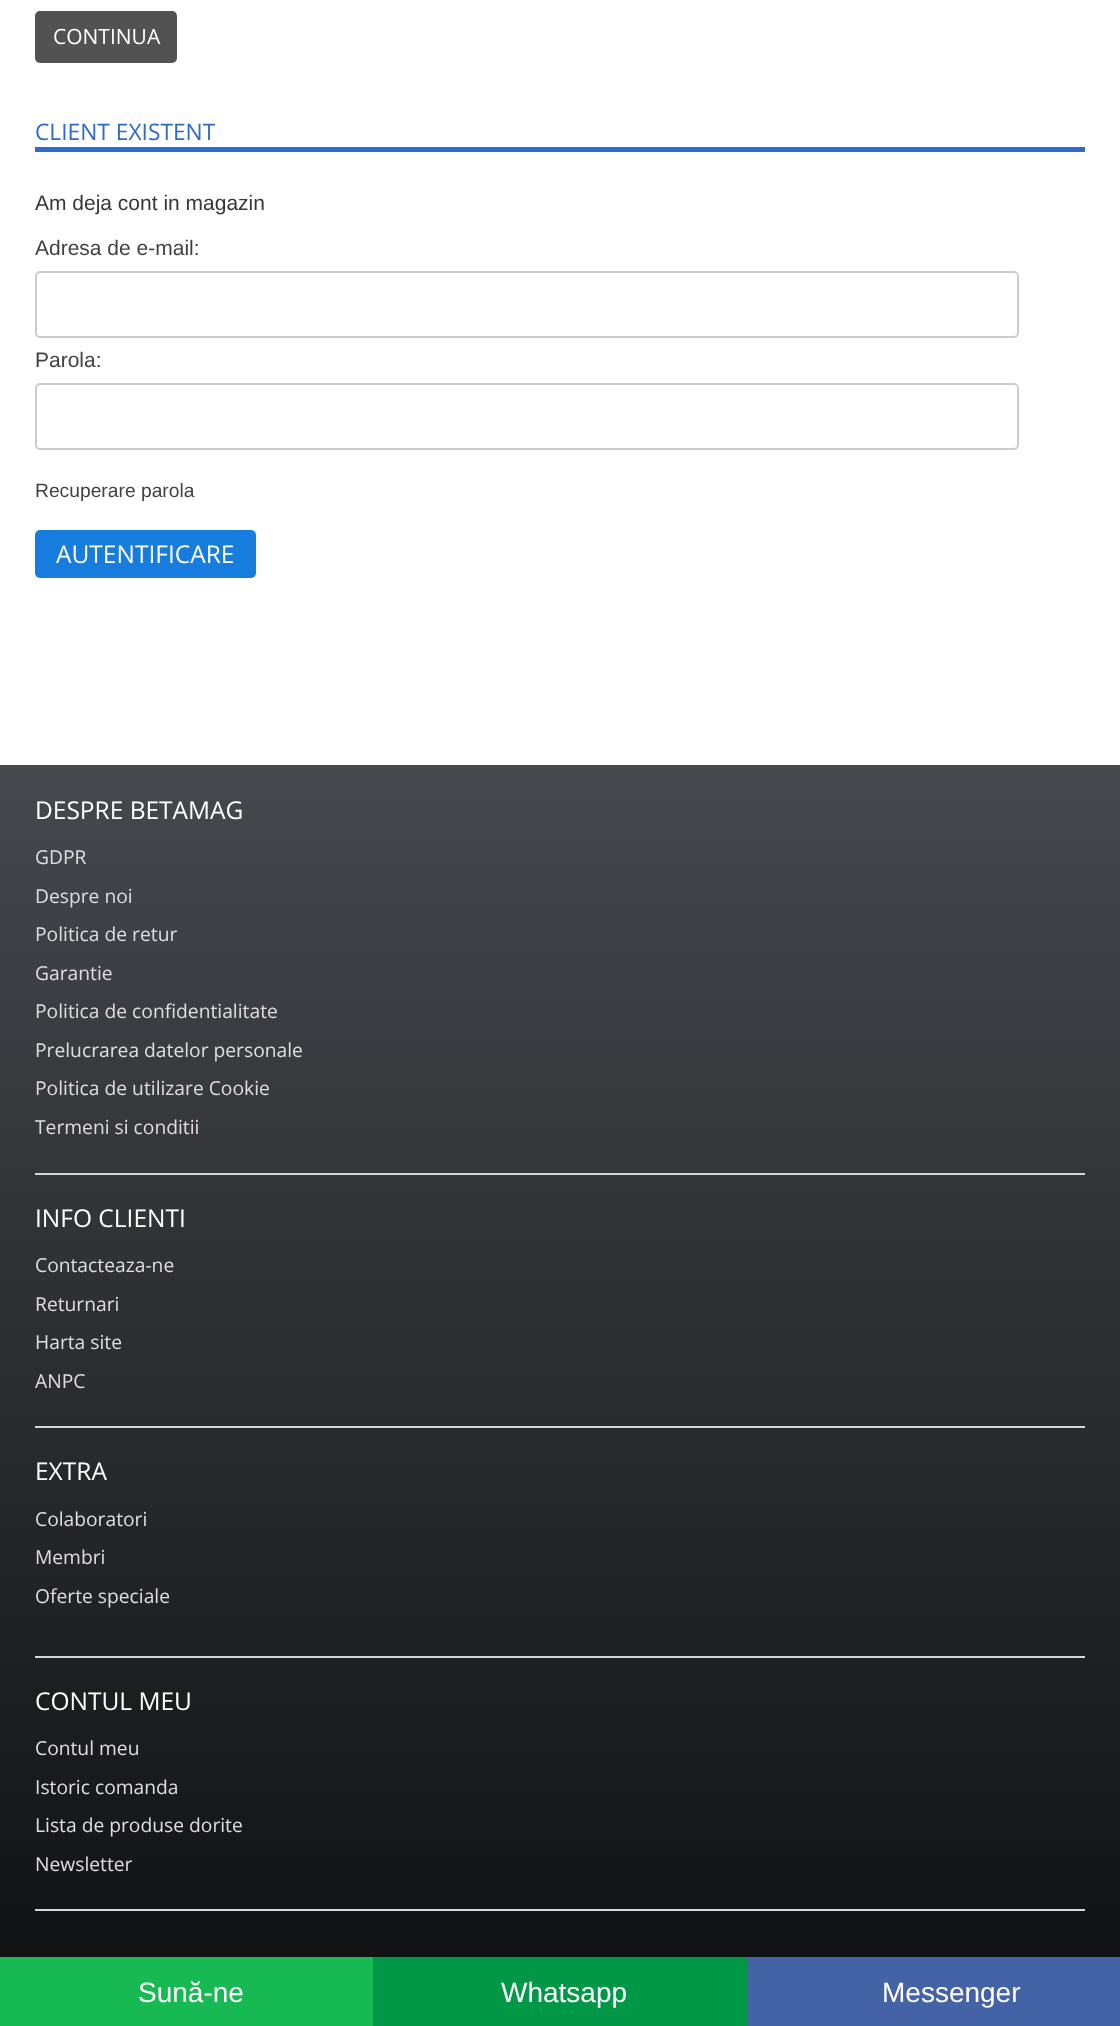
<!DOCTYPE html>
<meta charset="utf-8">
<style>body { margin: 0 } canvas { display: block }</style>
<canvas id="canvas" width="1120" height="2026"></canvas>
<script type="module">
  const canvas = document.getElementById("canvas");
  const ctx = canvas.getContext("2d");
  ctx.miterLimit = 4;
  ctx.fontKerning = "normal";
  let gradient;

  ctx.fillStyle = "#ffffff";
  ctx.fillRect(0, 0, 1120, 2026);
  ctx.fillStyle = "#525252";
  ctx.beginPath();
  ctx.roundRect(35, 11, 142, 52, 5);
  ctx.fill();
  ctx.font = "21px Open Sans";
  ctx.fillStyle = "#ffffff";
  ctx.fillText("CONTINUA", 53, 44);
  ctx.fillStyle = "#2e6bc7";
  ctx.fillRect(35, 147, 1050, 5);
  ctx.font = "22.75px Open Sans";
  ctx.fillText("CLIENT EXISTENT", 35, 140);
  ctx.font = "21px Liberation Sans";
  ctx.fillStyle = "#363636";
  ctx.fillText("Am deja cont in magazin", 35, 210);
  ctx.fillStyle = "#424242";
  ctx.fillText("Adresa de e-mail:", 35, 255);
  ctx.beginPath();
  ctx.roundRect(36, 272, 982, 65, 4);
  ctx.strokeStyle = "#cccccc";
  ctx.lineWidth = 2;
  ctx.stroke();
  ctx.fillText("Parola:", 35, 367);
  ctx.beginPath();
  ctx.roundRect(36, 384, 982, 65, 4);
  ctx.stroke();
  ctx.font = "19.25px Liberation Sans";
  ctx.fillText("Recuperare parola", 35, 497);
  ctx.fillStyle = "#167dde";
  ctx.beginPath();
  ctx.roundRect(35, 530, 221, 48, 5);
  ctx.fill();
  ctx.font = "24.5px Open Sans";
  ctx.fillStyle = "#ffffff";
  ctx.fillText("AUTENTIFICARE", 56, 563);
  gradient = ctx.createLinearGradient(560, 765, 560, 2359);
  gradient.addColorStop(0, "#45484d");
  gradient.addColorStop(1, "#000000");
  ctx.fillStyle = gradient;
  ctx.fillRect(0, 765, 1120, 1192);
  ctx.fillStyle = "#d6d6d6";
  ctx.fillRect(35, 1173, 1050, 2);
  ctx.fillStyle = "#ffffff";
  ctx.fillText("DESPRE BETAMAG", 35, 819);
  ctx.font = "19.25px Open Sans";
  ctx.fillStyle = "#e0dce0";
  ctx.fillText("GDPR", 35, 864);
  ctx.fillText("Despre noi", 35, 903);
  ctx.fillText("Politica de retur", 35, 941);
  ctx.fillText("Garantie", 35, 980);
  ctx.fillText("Politica de confidentialitate", 35, 1018);
  ctx.fillText("Prelucrarea datelor personale", 35, 1057);
  ctx.fillText("Politica de utilizare Cookie", 35, 1095);
  ctx.fillText("Termeni si conditii", 35, 1134);
  ctx.fillStyle = "#d6d6d6";
  ctx.fillRect(35, 1426, 1050, 2);
  ctx.font = "24.5px Open Sans";
  ctx.fillStyle = "#ffffff";
  ctx.fillText("INFO CLIENTI", 35, 1227);
  ctx.font = "19.25px Open Sans";
  ctx.fillStyle = "#e0dce0";
  ctx.fillText("Contacteaza-ne", 35, 1272);
  ctx.fillText("Returnari", 35, 1311);
  ctx.fillText("Harta site", 35, 1349);
  ctx.fillText("ANPC", 35, 1388);
  ctx.fillStyle = "#d6d6d6";
  ctx.fillRect(35, 1656, 1050, 2);
  ctx.font = "24.5px Open Sans";
  ctx.fillStyle = "#ffffff";
  ctx.fillText("EXTRA", 35, 1480);
  ctx.font = "19.25px Open Sans";
  ctx.fillStyle = "#e0dce0";
  ctx.fillText("Colaboratori", 35, 1526);
  ctx.fillText("Membri", 35, 1564);
  ctx.fillText("Oferte speciale", 35, 1603);
  ctx.fillStyle = "#d6d6d6";
  ctx.fillRect(35, 1909, 1050, 2);
  ctx.font = "24.5px Open Sans";
  ctx.fillStyle = "#ffffff";
  ctx.fillText("CONTUL MEU", 35, 1710);
  ctx.font = "19.25px Open Sans";
  ctx.fillStyle = "#e0dce0";
  ctx.fillText("Contul meu", 35, 1755);
  ctx.fillText("Istoric comanda", 35, 1794);
  ctx.fillText("Lista de produse dorite", 35, 1832);
  ctx.fillText("Newsletter", 35, 1871);
  ctx.fillStyle = "#16b952";
  ctx.fillRect(0, 1957, 373, 69);
  ctx.font = "28px Liberation Sans";
  ctx.fillStyle = "#ffffff";
  ctx.fillText("Sună-ne", 138, 2002);
  ctx.fillStyle = "#009846";
  ctx.fillRect(373, 1957, 374, 69);
  ctx.fillStyle = "#ffffff";
  ctx.fillText("Whatsapp", 501, 2002);
  ctx.fillStyle = "#4363a6";
  ctx.fillRect(747, 1957, 373, 69);
  ctx.fillStyle = "#ffffff";
  ctx.fillText("Messenger", 882, 2002);
</script>
